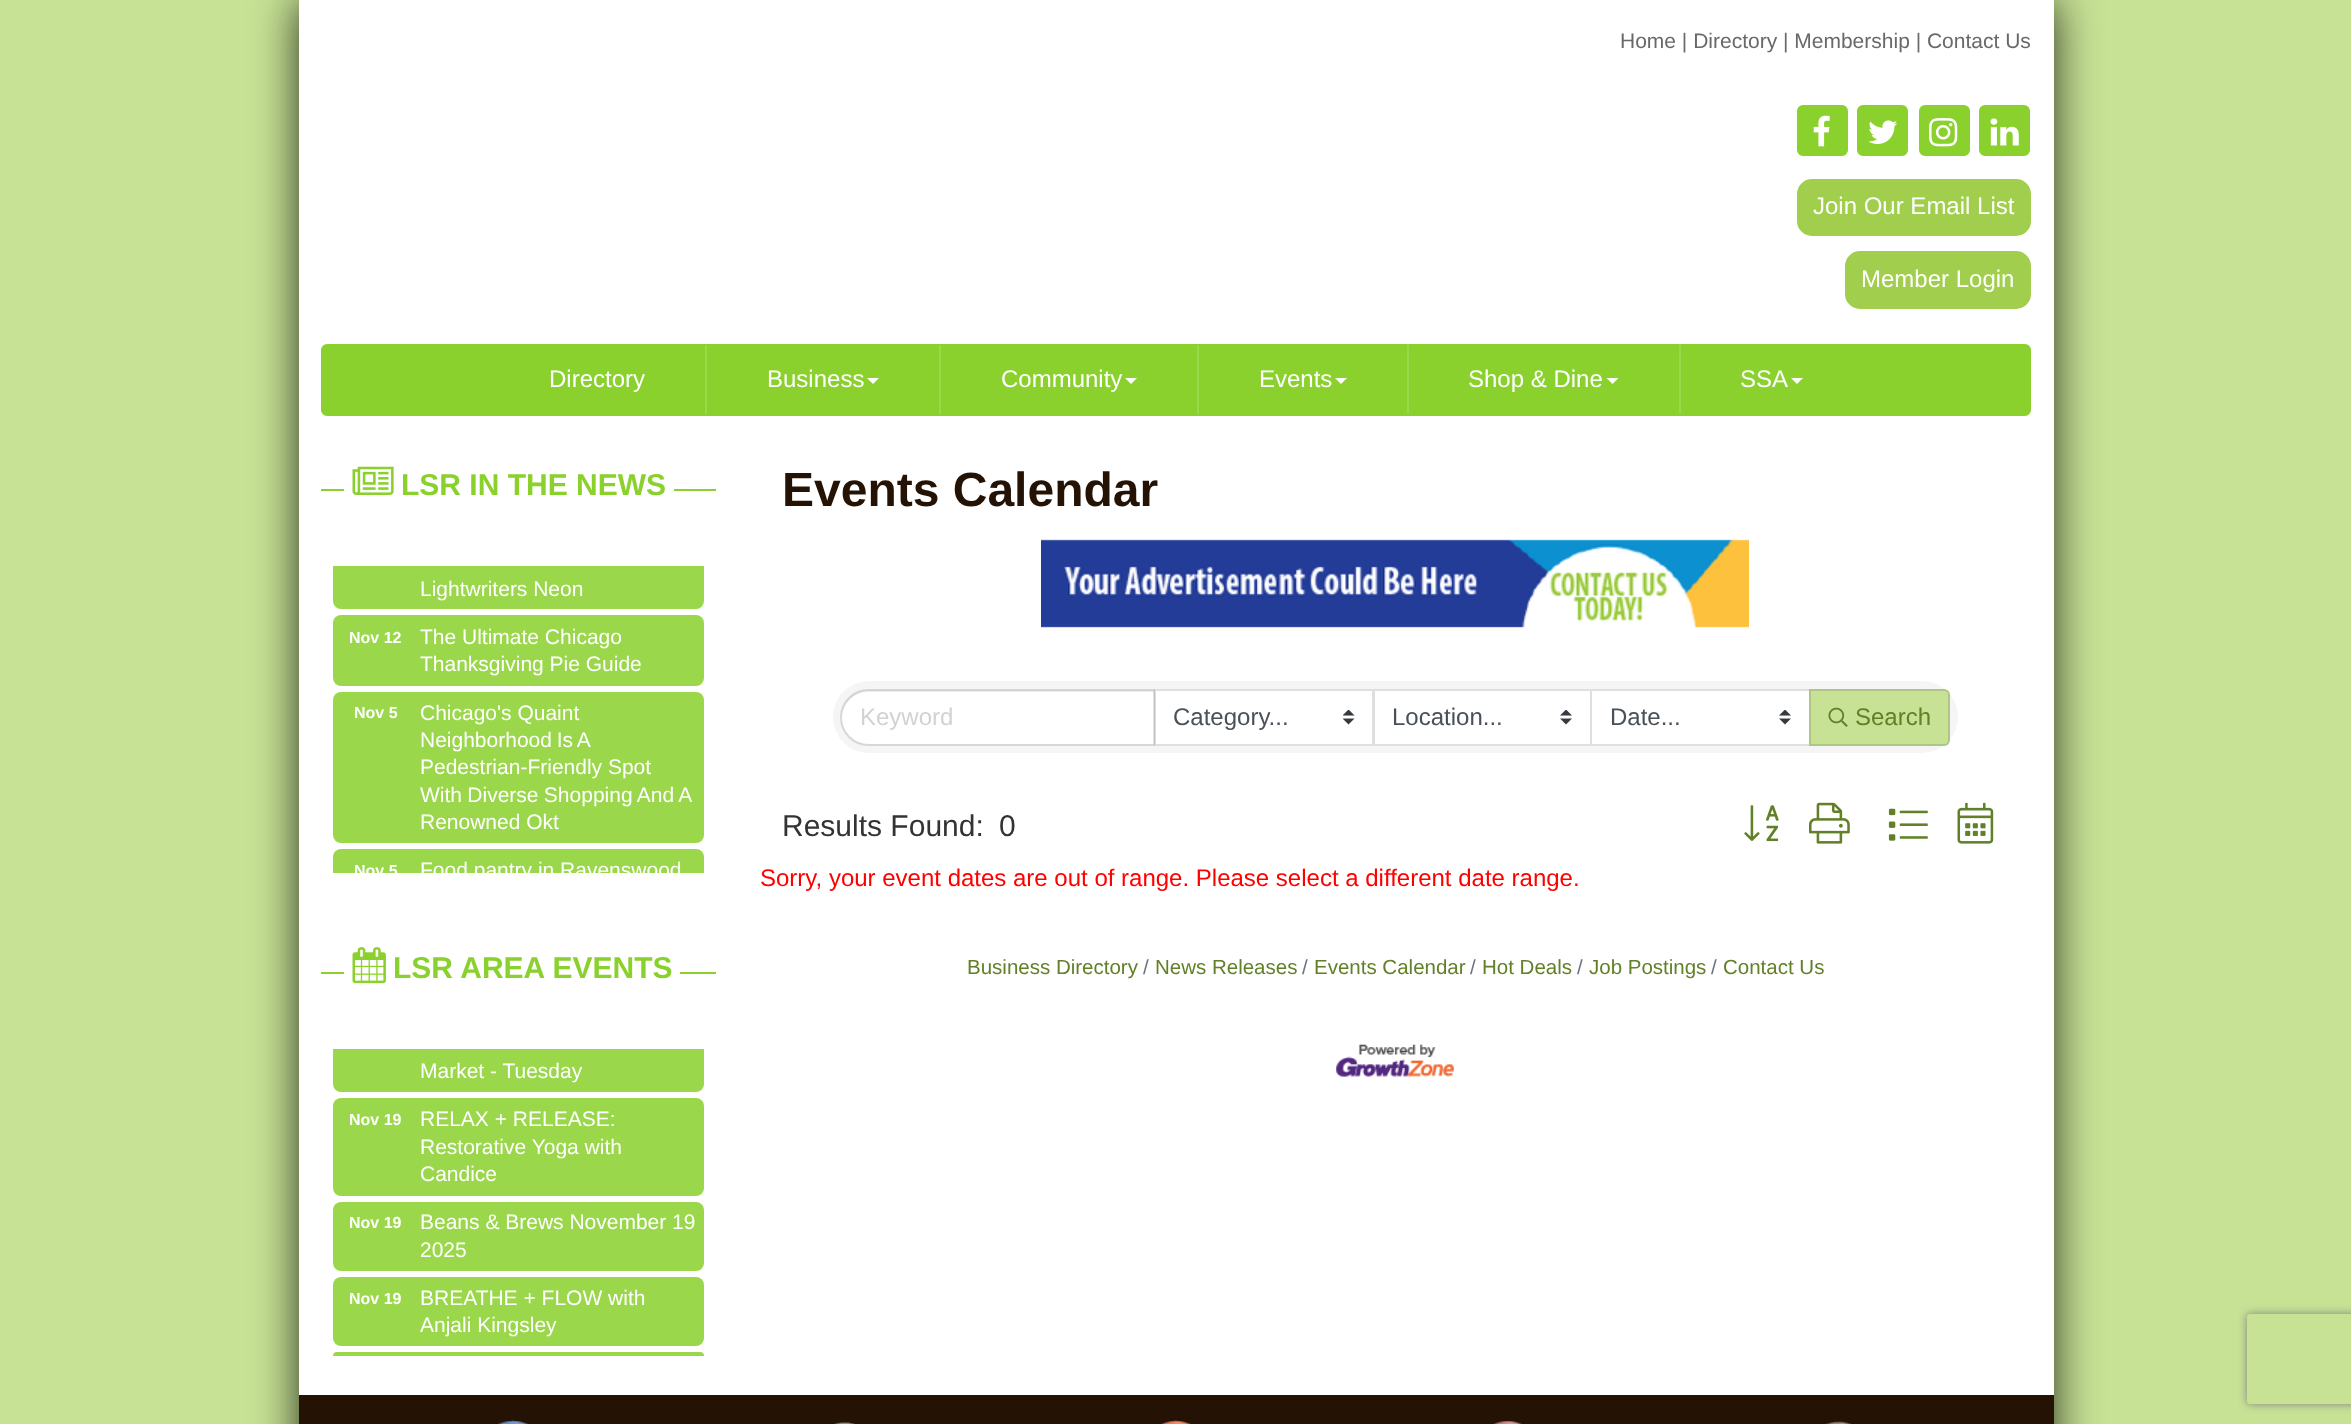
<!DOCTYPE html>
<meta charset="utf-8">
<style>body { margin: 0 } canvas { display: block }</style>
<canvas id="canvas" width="2351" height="1424"></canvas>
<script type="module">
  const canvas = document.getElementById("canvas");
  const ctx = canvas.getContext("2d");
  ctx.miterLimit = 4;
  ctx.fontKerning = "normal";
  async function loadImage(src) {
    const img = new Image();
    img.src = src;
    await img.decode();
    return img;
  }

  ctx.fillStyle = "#c7e295";
  ctx.fillRect(0, 0, 2351, 1424);
  ctx.fillStyle = "rgba(0, 0, 0, 0.8)";
  ctx.filter = "blur(22.5px)";
  ctx.beginPath();
  ctx.rect(299, 0, 1755, 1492);
  ctx.fill();
  ctx.filter = "none";
  ctx.fillStyle = "#ffffff";
  ctx.fillRect(299, 0, 1755, 1395);
  ctx.font = "21px Liberation Sans";
  ctx.fillStyle = "#696969";
  ctx.fillText("Home | Directory | Membership | Contact Us", 1620, 48);
  ctx.fillStyle = "#8bd12e";
  ctx.beginPath();
  ctx.roundRect(1798, 106, 49, 49, 5);
  ctx.fill();
  ctx.strokeStyle = "#8bd12e";
  ctx.lineWidth = 2;
  ctx.stroke();
  ctx.drawImage(await loadImage("img1.png"), 1813, 115, 17, 32);
  ctx.beginPath();
  ctx.roundRect(1858, 106, 49, 49, 5);
  ctx.fill();
  ctx.stroke();
  ctx.drawImage(await loadImage("img2.png"), 1868, 120, 30, 24);
  ctx.beginPath();
  ctx.roundRect(1920, 106, 49, 49, 5);
  ctx.fill();
  ctx.stroke();
  ctx.drawImage(await loadImage("img3.png"), 1929, 118, 29, 29);
  ctx.beginPath();
  ctx.roundRect(1980, 106, 49, 49, 5);
  ctx.fill();
  ctx.stroke();
  ctx.drawImage(await loadImage("img4.png"), 1990, 118, 29, 28);
  ctx.fillStyle = "#a1ce4c";
  ctx.beginPath();
  ctx.roundRect(1798, 180, 232, 55, 14);
  ctx.fill();
  ctx.strokeStyle = "#a1ce4c";
  ctx.stroke();
  ctx.font = "24px Liberation Sans";
  ctx.fillStyle = "#ffffff";
  ctx.fillText("Join Our Email List", 1813, 214);
  ctx.fillStyle = "#a1ce4c";
  ctx.beginPath();
  ctx.roundRect(1846, 252, 184, 56, 14);
  ctx.fill();
  ctx.stroke();
  ctx.fillStyle = "#ffffff";
  ctx.fillText("Member Login", 1861, 287);
  ctx.fillStyle = "#8bd12e";
  ctx.beginPath();
  ctx.roundRect(322, 345, 1708, 70, 5);
  ctx.fill();
  ctx.strokeStyle = "#8bd12e";
  ctx.stroke();
  ctx.fillStyle = "#9bd74b";
  ctx.fillRect(705, 345, 2, 69);
  ctx.fillStyle = "#ffffff";
  ctx.fillText("Directory", 549, 387);
  ctx.fillStyle = "#9bd74b";
  ctx.fillRect(939, 345, 2, 69);
  ctx.fillStyle = "#ffffff";
  ctx.fillText("Business", 767, 387);
  ctx.beginPath();
  ctx.moveTo(867, 378);
  ctx.lineTo(879, 378);
  ctx.lineTo(873, 384);
  ctx.closePath();
  ctx.fill();
  ctx.fillStyle = "#9bd74b";
  ctx.fillRect(1197, 345, 2, 69);
  ctx.fillStyle = "#ffffff";
  ctx.fillText("Community", 1001, 387);
  ctx.beginPath();
  ctx.moveTo(1125, 378);
  ctx.lineTo(1137, 378);
  ctx.lineTo(1131, 384);
  ctx.closePath();
  ctx.fill();
  ctx.fillStyle = "#9bd74b";
  ctx.fillRect(1407, 345, 2, 69);
  ctx.fillStyle = "#ffffff";
  ctx.fillText("Events", 1259, 387);
  ctx.beginPath();
  ctx.moveTo(1335, 378);
  ctx.lineTo(1347, 378);
  ctx.lineTo(1341, 384);
  ctx.closePath();
  ctx.fill();
  ctx.fillStyle = "#9bd74b";
  ctx.fillRect(1679, 345, 2, 69);
  ctx.fillStyle = "#ffffff";
  ctx.fillText("Shop & Dine", 1468, 387);
  ctx.beginPath();
  ctx.moveTo(1606.5, 378);
  ctx.lineTo(1618.5, 378);
  ctx.lineTo(1612.5, 384);
  ctx.closePath();
  ctx.fill();
  ctx.fillText("SSA", 1740, 387);
  ctx.beginPath();
  ctx.moveTo(1791, 378);
  ctx.lineTo(1803, 378);
  ctx.lineTo(1797, 384);
  ctx.closePath();
  ctx.fill();
  ctx.fillStyle = "#8bd12e";
  ctx.fillRect(321, 489, 395, 2);
  ctx.fillStyle = "#ffffff";
  ctx.fillRect(344, 489, 330, 2);
  ctx.drawImage(await loadImage("img5.png"), 352, 466, 42, 29);
  ctx.font = "bold 30px Liberation Sans";
  ctx.fillStyle = "#8bd12e";
  ctx.fillText("LSR IN THE NEWS", 401, 495);
  ctx.fillStyle = "#9bd74b";
  ctx.beginPath();
  ctx.roundRect(333, 566, 371, 43, [0, 0, 8, 8]);
  ctx.fill();
  ctx.font = "21px Liberation Sans";
  ctx.fillStyle = "#ffffff";
  ctx.fillText("Lightwriters Neon", 420, 596);
  ctx.fillStyle = "#9bd74b";
  ctx.beginPath();
  ctx.roundRect(333, 615, 371, 71, 8);
  ctx.fill();
  ctx.font = "bold 16px Liberation Sans";
  ctx.fillStyle = "#ffffff";
  ctx.fillText("Nov 12", 349, 643);
  ctx.font = "21px Liberation Sans";
  ctx.fillText("The Ultimate Chicago", 420, 644);
  ctx.fillText("Thanksgiving Pie Guide", 420, 671);
  ctx.fillStyle = "#9bd74b";
  ctx.beginPath();
  ctx.roundRect(333, 692, 371, 151, 8);
  ctx.fill();
  ctx.font = "bold 16px Liberation Sans";
  ctx.fillStyle = "#ffffff";
  ctx.fillText("Nov 5", 354, 718);
  ctx.font = "21px Liberation Sans";
  ctx.fillText("Chicago's Quaint", 420, 720);
  ctx.wordSpacing = "-1px";
  ctx.fillText("Neighborhood Is A", 420, 747);
  ctx.wordSpacing = "0px";
  ctx.fillText("Pedestrian-Friendly Spot", 420, 774);
  ctx.wordSpacing = "-0.5px";
  ctx.fillText("With Diverse Shopping And A", 420, 802);
  ctx.wordSpacing = "0px";
  ctx.fillText("Renowned Okt", 420, 829);
  ctx.fillStyle = "#9bd74b";
  ctx.beginPath();
  ctx.roundRect(333, 849, 371, 24, [8, 8, 0, 0]);
  ctx.fill();
  ctx.save();
  ctx.beginPath();
  ctx.rect(333, 566, 371, 307);
  ctx.clip();
  ctx.font = "bold 16px Liberation Sans";
  ctx.fillStyle = "#ffffff";
  ctx.fillText("Nov 5", 354, 876);
  ctx.font = "21px Liberation Sans";
  ctx.fillText("Food pantry in Ravenswood", 420, 877);
  ctx.restore();
  ctx.fillStyle = "#8bd12e";
  ctx.fillRect(321, 972, 395, 2);
  ctx.fillStyle = "#ffffff";
  ctx.fillRect(344, 972, 336, 2);
  ctx.drawImage(await loadImage("img6.png"), 352, 947, 34, 37);
  ctx.font = "bold 30px Liberation Sans";
  ctx.fillStyle = "#8bd12e";
  ctx.fillText("LSR AREA EVENTS", 393, 978);
  ctx.fillStyle = "#9bd74b";
  ctx.beginPath();
  ctx.roundRect(333, 1049, 371, 43, [0, 0, 8, 8]);
  ctx.fill();
  ctx.font = "21px Liberation Sans";
  ctx.fillStyle = "#ffffff";
  ctx.fillText("Market - Tuesday", 420, 1078);
  ctx.fillStyle = "#9bd74b";
  ctx.beginPath();
  ctx.roundRect(333, 1098, 371, 98, 8);
  ctx.fill();
  ctx.font = "bold 16px Liberation Sans";
  ctx.fillStyle = "#ffffff";
  ctx.fillText("Nov 19", 349, 1125);
  ctx.font = "21px Liberation Sans";
  ctx.fillText("RELAX + RELEASE:", 420, 1126);
  ctx.fillText("Restorative Yoga with", 420, 1154);
  ctx.fillText("Candice", 420, 1181);
  ctx.fillStyle = "#9bd74b";
  ctx.beginPath();
  ctx.roundRect(333, 1202, 371, 69, 8);
  ctx.fill();
  ctx.font = "bold 16px Liberation Sans";
  ctx.fillStyle = "#ffffff";
  ctx.fillText("Nov 19", 349, 1228);
  ctx.font = "21px Liberation Sans";
  ctx.fillText("Beans & Brews November 19", 420, 1229);
  ctx.fillText("2025", 420, 1257);
  ctx.fillStyle = "#9bd74b";
  ctx.beginPath();
  ctx.roundRect(333, 1277, 371, 69, 8);
  ctx.fill();
  ctx.font = "bold 16px Liberation Sans";
  ctx.fillStyle = "#ffffff";
  ctx.fillText("Nov 19", 349, 1304);
  ctx.font = "21px Liberation Sans";
  ctx.fillText("BREATHE + FLOW with", 420, 1305);
  ctx.fillText("Anjali Kingsley", 420, 1332);
  ctx.fillStyle = "#9bd74b";
  ctx.beginPath();
  ctx.roundRect(333, 1352, 371, 4, [8, 8, 0, 0]);
  ctx.fill();
  ctx.font = "bold 48px Liberation Sans";
  ctx.fillStyle = "#241305";
  ctx.fillText("Events Calendar", 782, 506);
  ctx.drawImage(await loadImage("img7.png"), 1041, 539, 708, 89);
  ctx.fillStyle = "#f5f5f5";
  ctx.beginPath();
  ctx.roundRect(833, 681, 1125, 72, 36);
  ctx.fill();
  ctx.fillStyle = "#ffffff";
  ctx.beginPath();
  ctx.roundRect(842, 690, 312, 54, [27, 0, 0, 27]);
  ctx.fill();
  ctx.fillStyle = "rgba(0, 0, 0, 0.07)";
  ctx.beginPath();
  ctx.moveTo(868, 692);
  ctx.lineTo(1154, 692);
  ctx.lineTo(1154, 690);
  ctx.lineTo(869, 690);
  ctx.bezierCurveTo(854, 690, 842, 702, 842, 717);
  ctx.lineTo(842, 718);
  ctx.bezierCurveTo(842, 704, 854, 692, 868, 692);
  ctx.closePath();
  ctx.fill();
  ctx.fillStyle = "#ffffff";
  ctx.fillRect(1156, 691, 216, 53);
  ctx.drawImage(await loadImage("img8.png"), 1343, 710, 12, 15);
  ctx.strokeStyle = "#dfdfdf";
  ctx.strokeRect(1155, 690, 218, 55);
  ctx.beginPath();
  ctx.roundRect(841, 690, 313, 55, [27.5, 0, 0, 27.5]);
  ctx.strokeStyle = "rgba(0, 0, 0, 0.12)";
  ctx.stroke();
  ctx.font = "24px Liberation Sans";
  ctx.fillStyle = "#d2d2d2";
  ctx.fillText("Keyword", 860, 725);
  ctx.fillStyle = "#495057";
  ctx.fillText("Category...", 1173, 725);
  ctx.fillStyle = "#ffffff";
  ctx.fillRect(1375, 691, 215, 53);
  ctx.drawImage(await loadImage("img9.png"), 1560, 710, 12, 15);
  ctx.strokeStyle = "#dfdfdf";
  ctx.strokeRect(1374, 690, 217, 55);
  ctx.fillStyle = "#495057";
  ctx.fillText("Location...", 1392, 725);
  ctx.fillStyle = "#ffffff";
  ctx.fillRect(1592, 691, 217, 53);
  ctx.drawImage(await loadImage("img9.png"), 1779, 710, 12, 15);
  ctx.strokeRect(1591, 690, 219, 55);
  ctx.fillStyle = "#495057";
  ctx.fillText("Date...", 1610, 725);
  ctx.fillStyle = "#c7e295";
  ctx.beginPath();
  ctx.roundRect(1809, 689, 141, 57, [0, 6, 6, 0]);
  ctx.fill();
  ctx.beginPath();
  ctx.roundRect(1810, 690, 139, 55, [0, 5, 5, 0]);
  ctx.strokeStyle = "rgba(0, 0, 0, 0.12)";
  ctx.stroke();
  ctx.drawImage(await loadImage("img10.png"), 1828, 707, 20, 20);
  ctx.fillStyle = "#618027";
  ctx.fillText("Search", 1855, 725);
  ctx.font = "30px Liberation Sans";
  ctx.fillStyle = "#333333";
  ctx.fillText("Results Found:", 782, 836);
  ctx.fillText("0", 999, 836);
  ctx.drawImage(await loadImage("img11.png"), 1744, 805, 35, 37);
  ctx.drawImage(await loadImage("img12.png"), 1809, 802, 41, 42);
  ctx.drawImage(await loadImage("img13.png"), 1888, 808, 40, 33);
  ctx.drawImage(await loadImage("img14.png"), 1957, 802, 37, 42);
  ctx.font = "24px Liberation Sans";
  ctx.fillStyle = "#ff0000";
  ctx.fillText("Sorry, your event dates are out of range. Please select a different date range.", 760, 886);
  ctx.font = "20.5px Liberation Sans";
  ctx.fillStyle = "#618027";
  ctx.fillText("Business Directory", 967, 974);
  ctx.fillStyle = "#6c757d";
  ctx.fillText("/", 1143, 974);
  ctx.fillStyle = "#618027";
  ctx.fillText("News Releases", 1155, 974);
  ctx.fillStyle = "#6c757d";
  ctx.fillText("/", 1302, 974);
  ctx.fillStyle = "#618027";
  ctx.fillText("Events Calendar", 1314, 974);
  ctx.fillStyle = "#6c757d";
  ctx.fillText("/", 1470, 974);
  ctx.fillStyle = "#618027";
  ctx.fillText("Hot Deals", 1482, 974);
  ctx.fillStyle = "#6c757d";
  ctx.fillText("/", 1577, 974);
  ctx.fillStyle = "#618027";
  ctx.fillText("Job Postings", 1589, 974);
  ctx.fillStyle = "#6c757d";
  ctx.fillText("/", 1711, 974);
  ctx.fillStyle = "#618027";
  ctx.fillText("Contact Us", 1723, 974);
  ctx.drawImage(await loadImage("img15.png"), 1336, 1044, 118, 33);
  ctx.fillStyle = "#241305";
  ctx.fillRect(299, 1395, 1755, 29);
  ctx.drawImage(await loadImage("img16.png"), 497, 1420, 32, 4);
  ctx.drawImage(await loadImage("img17.png"), 834, 1422, 21, 2);
  ctx.drawImage(await loadImage("img18.png"), 1161, 1420, 30, 4);
  ctx.drawImage(await loadImage("img19.png"), 1493, 1421, 29, 3);
  ctx.drawImage(await loadImage("img20.png"), 1825, 1421, 27, 3);
  ctx.save();
  ctx.beginPath();
  ctx.moveTo(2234, 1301);
  ctx.lineTo(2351, 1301);
  ctx.lineTo(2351, 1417);
  ctx.lineTo(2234, 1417);
  ctx.closePath();
  ctx.moveTo(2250, 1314);
  ctx.lineTo(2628, 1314);
  ctx.bezierCurveTo(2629.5, 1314, 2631, 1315.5, 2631, 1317);
  ctx.lineTo(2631, 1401);
  ctx.bezierCurveTo(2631, 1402.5, 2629.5, 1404, 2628, 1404);
  ctx.lineTo(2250, 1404);
  ctx.bezierCurveTo(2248.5, 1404, 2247, 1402.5, 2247, 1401);
  ctx.lineTo(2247, 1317);
  ctx.bezierCurveTo(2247, 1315.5, 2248.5, 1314, 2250, 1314);
  ctx.closePath();
  ctx.clip("evenodd");
  ctx.fillStyle = "#808080";
  ctx.filter = "blur(4px)";
  ctx.beginPath();
  ctx.roundRect(2247, 1314, 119, 90, 3);
  ctx.fill();
  ctx.filter = "none";
  ctx.restore();
</script>
